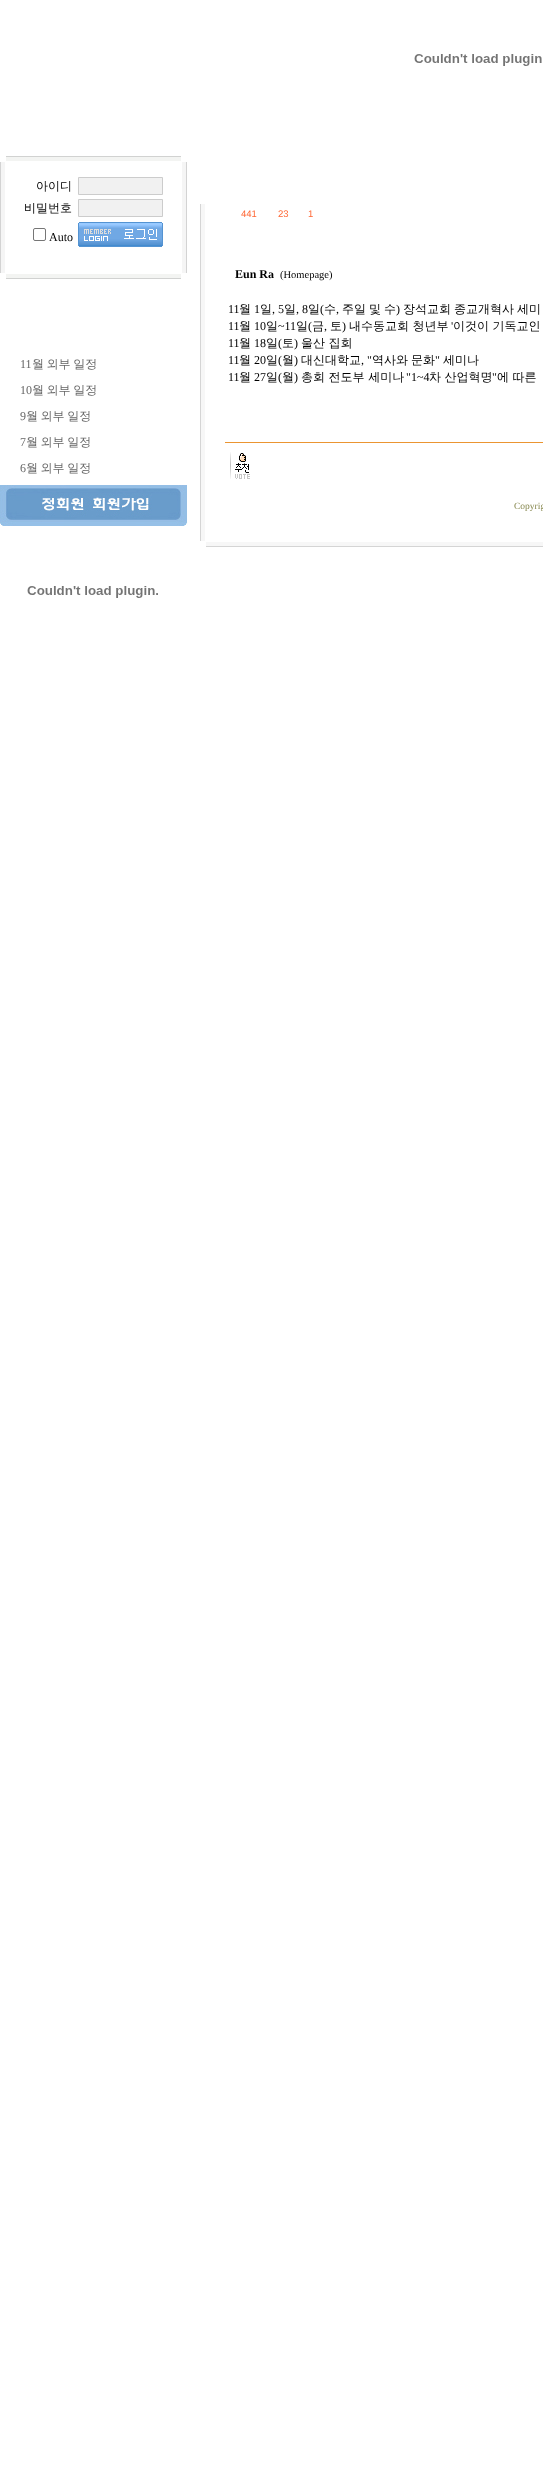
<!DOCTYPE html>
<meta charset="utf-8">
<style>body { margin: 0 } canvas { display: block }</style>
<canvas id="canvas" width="543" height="2480"></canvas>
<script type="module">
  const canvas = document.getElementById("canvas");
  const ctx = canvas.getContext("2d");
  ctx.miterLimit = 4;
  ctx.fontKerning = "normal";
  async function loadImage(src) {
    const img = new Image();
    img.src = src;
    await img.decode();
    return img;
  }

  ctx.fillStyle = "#ffffff";
  ctx.fillRect(0, 0, 543, 2480);
  ctx.drawImage(await loadImage("img1.png"), 414, 54, 128, 12);
  ctx.fillStyle = "#d1d2d1";
  ctx.fillRect(6, 156, 175, 1);
  ctx.fillStyle = "#f3f4f2";
  ctx.fillRect(6, 157, 175, 4);
  ctx.fillStyle = "#d3d3d3";
  ctx.fillRect(0, 162, 1, 111);
  ctx.fillStyle = "#f5f5f5";
  ctx.fillRect(1, 162, 4, 111);
  ctx.font = "500 12px WenQuanYi Zen Hei";
  ctx.fillStyle = "#000000";
  ctx.fillText("아이디", 36, 190);
  ctx.fillStyle = "#f1f1f1";
  ctx.beginPath();
  ctx.rect(78.5, 177.5, 84, 17);
  ctx.fill();
  ctx.strokeStyle = "#cccccc";
  ctx.stroke();
  ctx.fillStyle = "#000000";
  ctx.fillText("비밀번호", 24, 212);
  ctx.fillStyle = "#f1f1f1";
  ctx.beginPath();
  ctx.rect(78.5, 199.5, 84, 17);
  ctx.fill();
  ctx.stroke();
  ctx.beginPath();
  ctx.roundRect(33.5, 228.5, 12, 12, 1.5);
  ctx.strokeStyle = "#767676";
  ctx.stroke();
  ctx.font = "12px Liberation Serif";
  ctx.fillStyle = "#000000";
  ctx.fillText("Auto", 49, 241);
  ctx.drawImage(await loadImage("img2.png"), 78, 222, 85, 25);
  ctx.fillStyle = "#f5f5f5";
  ctx.fillRect(182, 162, 4, 111);
  ctx.fillStyle = "#d3d3d3";
  ctx.fillRect(186, 162, 1, 111);
  ctx.fillStyle = "#f3f4f2";
  ctx.fillRect(6, 274, 175, 4);
  ctx.fillStyle = "#d1d2d1";
  ctx.fillRect(6, 278, 175, 1);
  ctx.fillStyle = "#666666";
  ctx.fillText("11", 20, 368);
  ctx.wordSpacing = "-1px";
  ctx.font = "500 12px WenQuanYi Zen Hei";
  ctx.fillText("월 외부 일정", 32, 368);
  ctx.wordSpacing = "0px";
  ctx.font = "12px Liberation Serif";
  ctx.fillText("10", 20, 394);
  ctx.wordSpacing = "-1px";
  ctx.font = "500 12px WenQuanYi Zen Hei";
  ctx.fillText("월 외부 일정", 32, 394);
  ctx.wordSpacing = "0px";
  ctx.font = "12px Liberation Serif";
  ctx.fillText("9", 20, 420);
  ctx.wordSpacing = "-1px";
  ctx.font = "500 12px WenQuanYi Zen Hei";
  ctx.fillText("월 외부 일정", 26, 420);
  ctx.wordSpacing = "0px";
  ctx.font = "12px Liberation Serif";
  ctx.fillText("7", 20, 446);
  ctx.wordSpacing = "-1px";
  ctx.font = "500 12px WenQuanYi Zen Hei";
  ctx.fillText("월 외부 일정", 26, 446);
  ctx.wordSpacing = "0px";
  ctx.font = "12px Liberation Serif";
  ctx.fillText("6", 20, 472);
  ctx.wordSpacing = "-1px";
  ctx.font = "500 12px WenQuanYi Zen Hei";
  ctx.fillText("월 외부 일정", 26, 472);
  ctx.drawImage(await loadImage("img3.png"), 0, 485, 188, 41);
  ctx.drawImage(await loadImage("img4.png"), 27, 586, 131, 12);
  ctx.fillStyle = "#d5d5d5";
  ctx.fillRect(200, 204, 1, 337);
  ctx.fillStyle = "#f7f7f7";
  ctx.fillRect(201, 204, 4, 337);
  ctx.wordSpacing = "0px";
  ctx.font = "9.5px Liberation Sans";
  ctx.fillStyle = "#ff6633";
  ctx.fillText("441", 241, 217);
  ctx.fillText("23", 278, 217);
  ctx.fillText("1", 308, 217);
  ctx.font = "bold 12px Liberation Serif";
  ctx.fillStyle = "#000000";
  ctx.fillText("Eun Ra", 235, 278);
  ctx.font = "10.5px Liberation Serif";
  ctx.fillText("(Homepage)", 280, 278);
  ctx.font = "12px Liberation Serif";
  ctx.fillText("11", 228, 313);
  ctx.font = "500 12px WenQuanYi Zen Hei";
  ctx.fillText("월", 239, 313);
  ctx.font = "12px Liberation Serif";
  ctx.fillText("1", 254, 313);
  ctx.font = "500 12px WenQuanYi Zen Hei";
  ctx.fillText("일", 260, 313);
  ctx.font = "12px Liberation Serif";
  ctx.fillText(", 5", 272, 313);
  ctx.font = "500 12px WenQuanYi Zen Hei";
  ctx.fillText("일", 284, 313);
  ctx.font = "12px Liberation Serif";
  ctx.fillText(", 8", 296, 313);
  ctx.font = "500 12px WenQuanYi Zen Hei";
  ctx.fillText("일", 308, 313);
  ctx.font = "12px Liberation Serif";
  ctx.fillText("(", 320, 313);
  ctx.font = "500 12px WenQuanYi Zen Hei";
  ctx.fillText("수", 324, 313);
  ctx.font = "12px Liberation Serif";
  ctx.fillText(",", 336, 313);
  ctx.font = "500 12px WenQuanYi Zen Hei";
  ctx.fillText("주일", 342, 313);
  ctx.fillText("및", 369, 313);
  ctx.fillText("수", 384, 313);
  ctx.font = "12px Liberation Serif";
  ctx.fillText(")", 396, 313);
  ctx.font = "500 12px WenQuanYi Zen Hei";
  ctx.fillText("장석교회", 403, 313);
  ctx.fillText("종교개혁사", 454, 313);
  ctx.fillText("세미", 517, 313);
  ctx.font = "12px Liberation Serif";
  ctx.fillText("11", 228, 330);
  ctx.font = "500 12px WenQuanYi Zen Hei";
  ctx.fillText("월", 239, 330);
  ctx.font = "12px Liberation Serif";
  ctx.fillText("10", 254, 330);
  ctx.font = "500 12px WenQuanYi Zen Hei";
  ctx.fillText("일", 266, 330);
  ctx.font = "12px Liberation Serif";
  ctx.fillText("~11", 278, 330);
  ctx.font = "500 12px WenQuanYi Zen Hei";
  ctx.fillText("일", 296, 330);
  ctx.font = "12px Liberation Serif";
  ctx.fillText("(", 308, 330);
  ctx.font = "500 12px WenQuanYi Zen Hei";
  ctx.fillText("금", 312, 330);
  ctx.fillText("토", 330, 330);
  ctx.font = "12px Liberation Serif";
  ctx.fillText(")", 342, 330);
  ctx.font = "500 12px WenQuanYi Zen Hei";
  ctx.fillText("내수동교회 청년부", 349, 330);
  ctx.font = "12px Liberation Serif";
  ctx.fillText("'", 451, 330);
  ctx.font = "500 12px WenQuanYi Zen Hei";
  ctx.fillText("이것이 기독교인", 453, 330);
  ctx.font = "12px Liberation Serif";
  ctx.fillText(",", 324, 330);
  ctx.fillText("11", 228, 347);
  ctx.font = "500 12px WenQuanYi Zen Hei";
  ctx.fillText("월", 239, 347);
  ctx.font = "12px Liberation Serif";
  ctx.fillText("18", 254, 347);
  ctx.font = "500 12px WenQuanYi Zen Hei";
  ctx.fillText("일", 266, 347);
  ctx.font = "12px Liberation Serif";
  ctx.fillText("(", 278, 347);
  ctx.font = "500 12px WenQuanYi Zen Hei";
  ctx.fillText("토", 282, 347);
  ctx.font = "12px Liberation Serif";
  ctx.fillText(")", 294, 347);
  ctx.font = "500 12px WenQuanYi Zen Hei";
  ctx.fillText("울산 집회", 301, 347);
  ctx.font = "12px Liberation Serif";
  ctx.fillText("11", 228, 364);
  ctx.font = "500 12px WenQuanYi Zen Hei";
  ctx.fillText("월", 239, 364);
  ctx.font = "12px Liberation Serif";
  ctx.fillText("20", 254, 364);
  ctx.font = "500 12px WenQuanYi Zen Hei";
  ctx.fillText("일", 266, 364);
  ctx.font = "12px Liberation Serif";
  ctx.fillText("(", 278, 364);
  ctx.font = "500 12px WenQuanYi Zen Hei";
  ctx.fillText("월", 282, 364);
  ctx.font = "12px Liberation Serif";
  ctx.fillText(")", 294, 364);
  ctx.font = "500 12px WenQuanYi Zen Hei";
  ctx.fillText("대신대학교", 301, 364);
  ctx.font = "12px Liberation Serif";
  ctx.fillText(", \"", 361, 364);
  ctx.font = "500 12px WenQuanYi Zen Hei";
  ctx.fillText("역사와", 372, 364);
  ctx.fillText("문화", 411, 364);
  ctx.font = "12px Liberation Serif";
  ctx.fillText("\"", 435, 364);
  ctx.font = "500 12px WenQuanYi Zen Hei";
  ctx.fillText("세미나", 443, 364);
  ctx.font = "12px Liberation Serif";
  ctx.fillText("11", 228, 381);
  ctx.font = "500 12px WenQuanYi Zen Hei";
  ctx.fillText("월", 239, 381);
  ctx.font = "12px Liberation Serif";
  ctx.fillText("27", 254, 381);
  ctx.font = "500 12px WenQuanYi Zen Hei";
  ctx.fillText("일", 266, 381);
  ctx.font = "12px Liberation Serif";
  ctx.fillText("(", 278, 381);
  ctx.font = "500 12px WenQuanYi Zen Hei";
  ctx.fillText("월", 282, 381);
  ctx.font = "12px Liberation Serif";
  ctx.fillText(")", 294, 381);
  ctx.font = "500 12px WenQuanYi Zen Hei";
  ctx.fillText("총회 전도부 세미나", 301, 381);
  ctx.font = "12px Liberation Serif";
  ctx.fillText("\"1~4", 406, 381);
  ctx.font = "500 12px WenQuanYi Zen Hei";
  ctx.fillText("차 산업혁명", 429, 381);
  ctx.font = "12px Liberation Serif";
  ctx.fillText("\"", 492, 381);
  ctx.font = "500 12px WenQuanYi Zen Hei";
  ctx.fillText("에 따른", 497, 381);
  ctx.fillStyle = "#eb9531";
  ctx.fillRect(225, 442, 318, 1);
  ctx.drawImage(await loadImage("img5.png"), 230, 452, 20, 27);
  ctx.font = "9.5px Liberation Serif";
  ctx.fillStyle = "#86874d";
  ctx.fillText("Copyrig", 514, 509);
  ctx.fillStyle = "#f7f7f7";
  ctx.fillRect(206, 542, 337, 4);
  ctx.fillStyle = "#d5d5d5";
  ctx.fillRect(206, 546, 337, 1);
</script>
